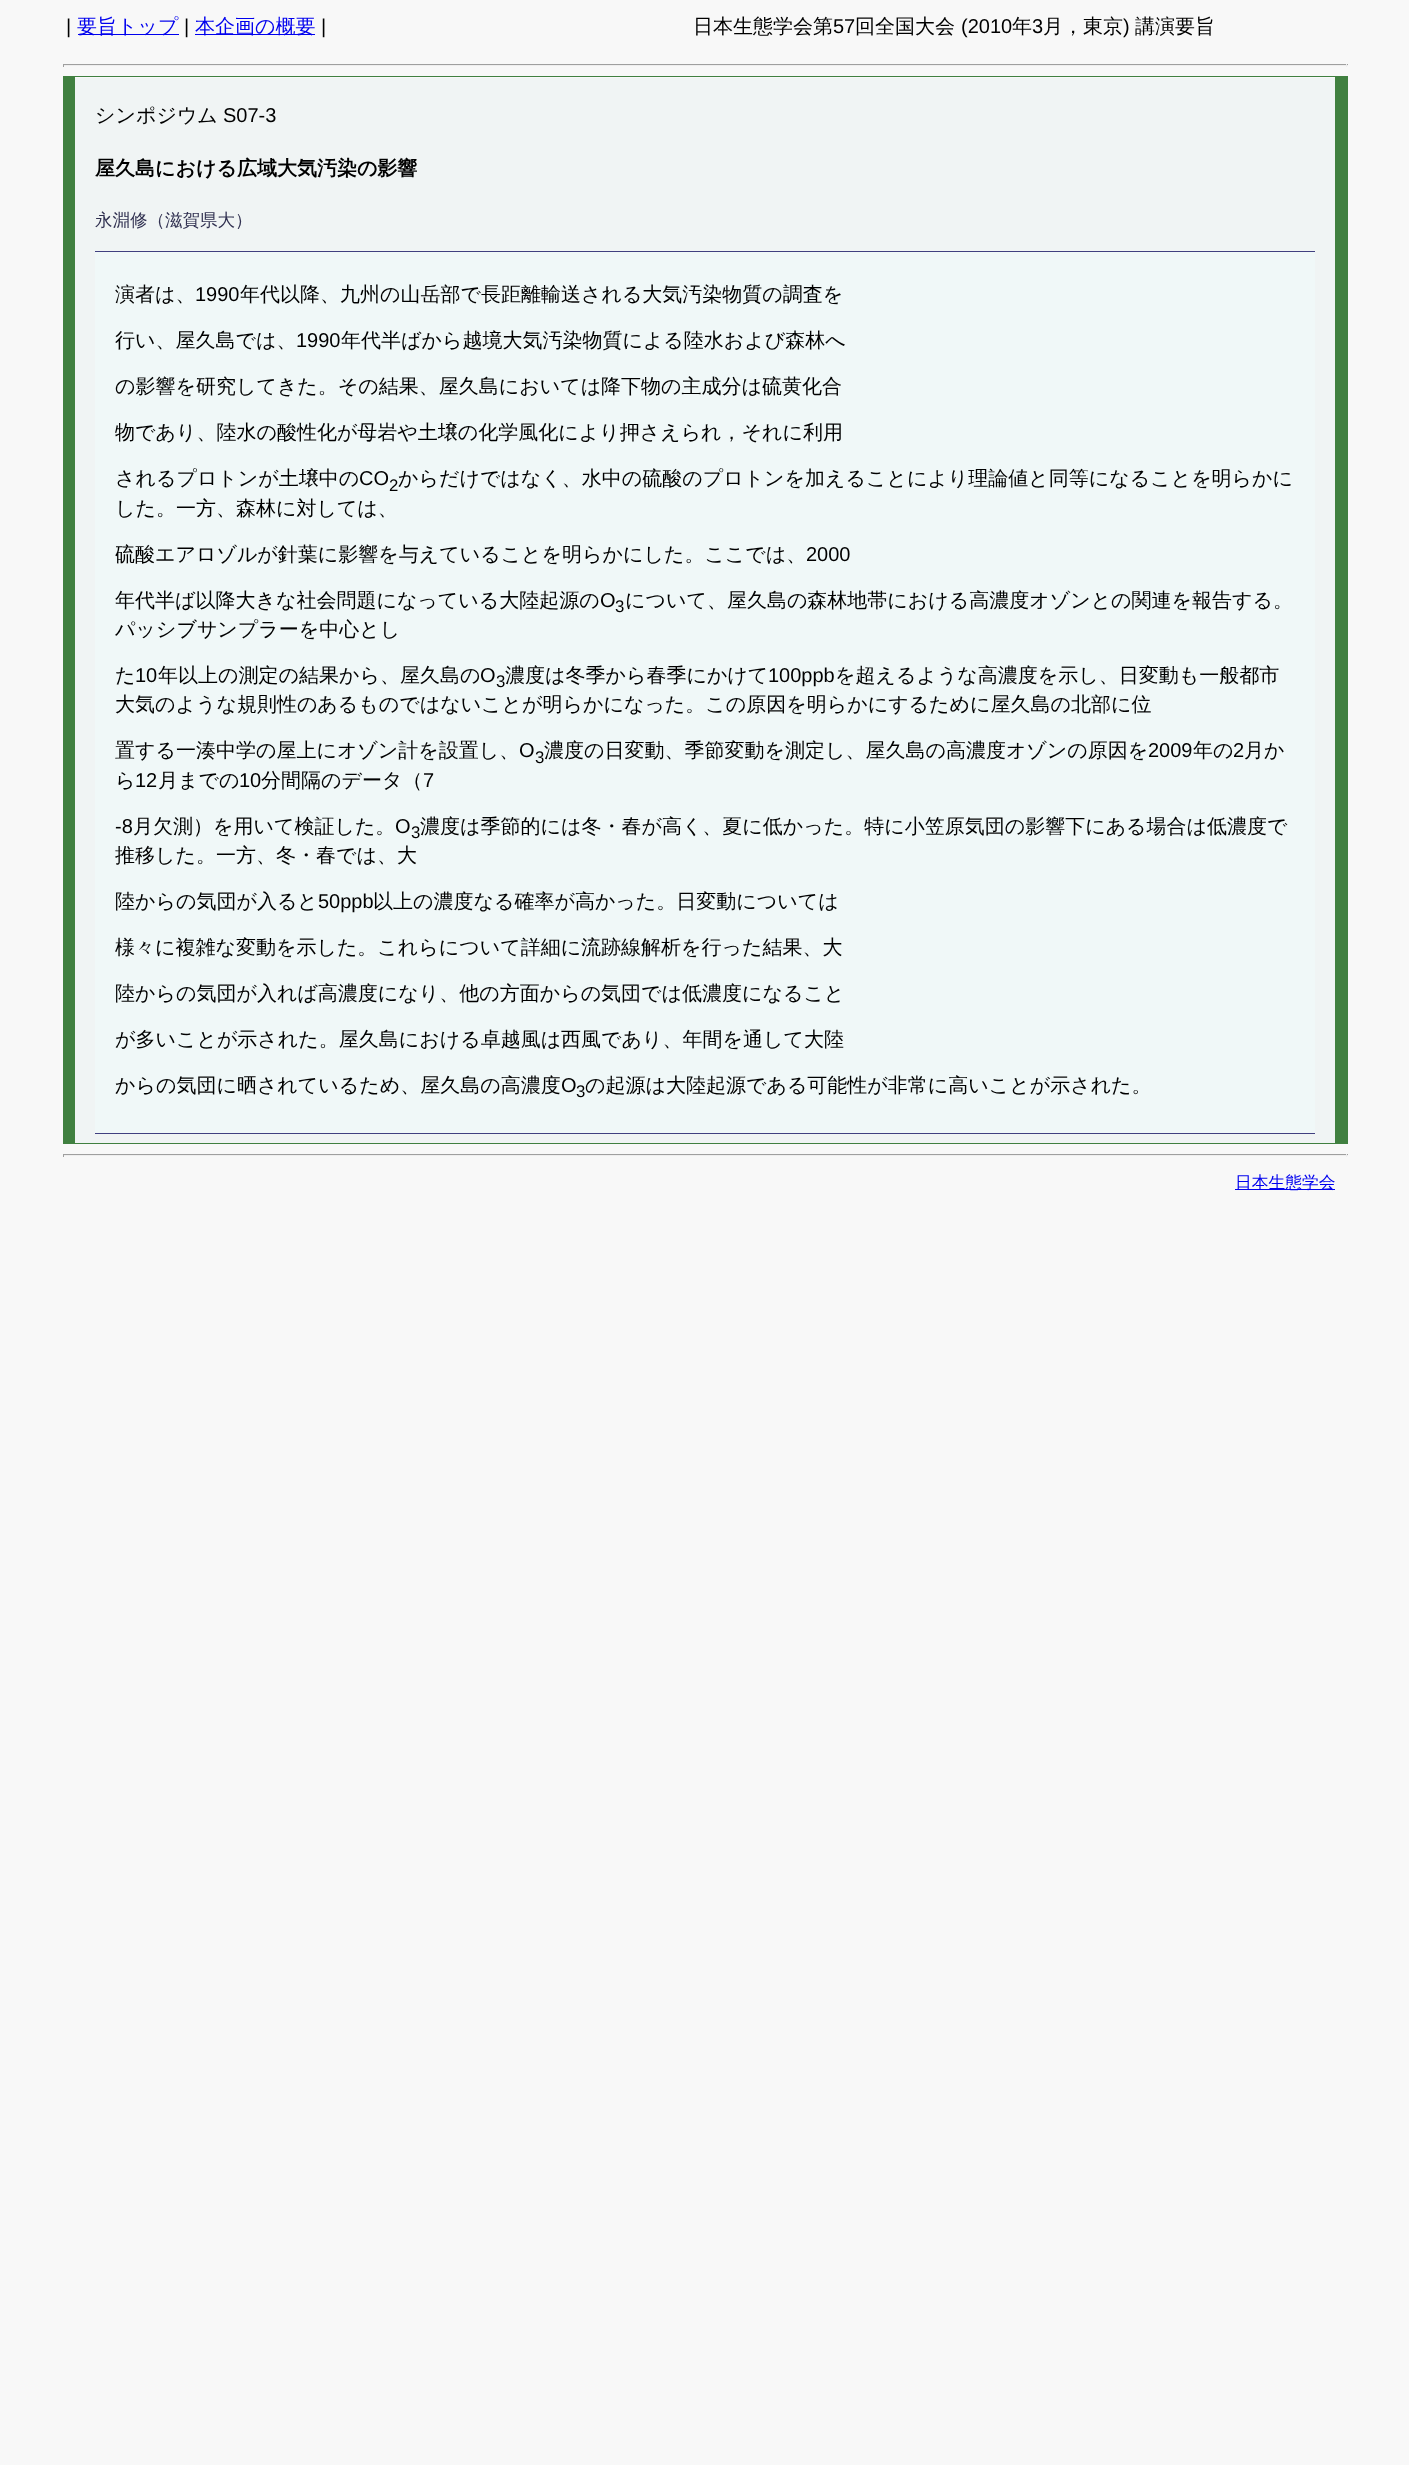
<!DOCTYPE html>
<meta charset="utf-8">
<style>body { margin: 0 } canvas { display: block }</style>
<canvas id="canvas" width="1409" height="2465"></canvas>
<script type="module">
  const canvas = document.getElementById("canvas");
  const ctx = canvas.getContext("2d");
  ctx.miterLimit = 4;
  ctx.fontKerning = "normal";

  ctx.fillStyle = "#f8f8f8";
  ctx.fillRect(0, 0, 1409, 2465);
  ctx.font = "20px Liberation Sans";
  ctx.fillStyle = "#000000";
  ctx.fillText("|", 66, 33);
  ctx.fillStyle = "#0000ee";
  ctx.fillRect(78, 34, 101, 1);
  ctx.font = "500 20px WenQuanYi Zen Hei";
  ctx.fillText("要旨トップ", 77, 33);
  ctx.font = "20px Liberation Sans";
  ctx.fillStyle = "#000000";
  ctx.fillText("|", 184, 33);
  ctx.fillStyle = "#0000ee";
  ctx.fillRect(195, 34, 120, 1);
  ctx.font = "500 20px WenQuanYi Zen Hei";
  ctx.fillText("本企画の概要", 195, 33);
  ctx.font = "20px Liberation Sans";
  ctx.fillStyle = "#000000";
  ctx.fillText("|", 321, 33);
  ctx.font = "500 20px WenQuanYi Zen Hei";
  ctx.fillText("日本生態学会第", 693, 33);
  ctx.font = "20px Liberation Sans";
  ctx.fillText("57", 833, 33);
  ctx.font = "500 20px WenQuanYi Zen Hei";
  ctx.fillText("回全国大会", 855, 33);
  ctx.font = "20px Liberation Sans";
  ctx.fillText("(2010", 961, 33);
  ctx.font = "500 20px WenQuanYi Zen Hei";
  ctx.fillText("年", 1012, 33);
  ctx.font = "20px Liberation Sans";
  ctx.fillText("3", 1032, 33);
  ctx.font = "500 20px WenQuanYi Zen Hei";
  ctx.fillText("月，東京", 1043, 33);
  ctx.font = "20px Liberation Sans";
  ctx.fillText(")", 1123, 33);
  ctx.font = "500 20px WenQuanYi Zen Hei";
  ctx.fillText("講演要旨", 1135, 33);
  ctx.fillStyle = "#9f9f9f";
  ctx.fillRect(63, 64, 1285, 1);
  ctx.fillStyle = "#eeeeee";
  ctx.fillRect(1346, 64, 1, 3);
  ctx.fillRect(63, 65, 1285, 1);
  ctx.fillStyle = "#9f9f9f";
  ctx.fillRect(63, 64, 1, 3);
  ctx.fillStyle = "#f0f4f4";
  ctx.fillRect(75, 78, 1260, 1065);
  ctx.fillStyle = "#408040";
  ctx.fillRect(75, 76, 1260, 1);
  ctx.fillRect(1335, 76, 13, 1067);
  ctx.fillRect(75, 1143, 1273, 1);
  ctx.fillRect(63, 76, 12, 1068);
  ctx.fillStyle = "#000000";
  ctx.fillText("シンポジウム", 95, 122);
  ctx.font = "20px Liberation Sans";
  ctx.fillText("S07-3", 223, 122);
  ctx.font = "bold 20px WenQuanYi Zen Hei";
  ctx.fillText("屋久島における広域大気汚染の影響", 95, 175);
  ctx.font = "500 17.5px WenQuanYi Zen Hei";
  ctx.fillStyle = "#303050";
  ctx.fillText("永淵修（滋賀県大）", 95, 226);
  ctx.fillStyle = "#f0f8f8";
  ctx.fillRect(95, 252, 1220, 881);
  ctx.fillStyle = "#404080";
  ctx.fillRect(95, 251, 1220, 1);
  ctx.fillRect(95, 1133, 1220, 1);
  ctx.font = "500 20px WenQuanYi Zen Hei";
  ctx.fillStyle = "#000000";
  ctx.fillText("演者は、", 115, 301);
  ctx.font = "20px Liberation Sans";
  ctx.fillText("1990", 195, 301);
  ctx.font = "500 20px WenQuanYi Zen Hei";
  ctx.fillText("年代以降、九州の山岳部で長距離輸送される大気汚染物質の調査を", 240, 301);
  ctx.fillText("行い、屋久島では、", 115, 347);
  ctx.font = "20px Liberation Sans";
  ctx.fillText("1990", 296, 347);
  ctx.font = "500 20px WenQuanYi Zen Hei";
  ctx.fillText("年代半ばから越境大気汚染物質による陸水および森林へ", 341, 347);
  ctx.fillText("の影響を研究してきた。その結果、屋久島においては降下物の主成分は硫黄化合", 115, 393);
  ctx.fillText("物であり、陸水の酸性化が母岩や土壌の化学風化により押さえられ，それに利用", 115, 439);
  ctx.fillText("されるプロトンが土壌中の", 115, 485);
  ctx.font = "20px Liberation Sans";
  ctx.fillText("CO", 359, 485);
  ctx.font = "16.75px Liberation Sans";
  ctx.fillText("2", 389, 491);
  ctx.font = "500 20px WenQuanYi Zen Hei";
  ctx.fillText("からだけではなく、水中の硫酸のプロトンを加えることにより理論値と同等になることを明らかに", 398, 485);
  ctx.fillText("した。一方、森林に対しては、", 115, 515);
  ctx.fillText("硫酸エアロゾルが針葉に影響を与えていることを明らかにした。ここでは、", 115, 561);
  ctx.font = "20px Liberation Sans";
  ctx.fillText("2000", 806, 561);
  ctx.font = "500 20px WenQuanYi Zen Hei";
  ctx.fillText("年代半ば以降大きな社会問題になっている大陸起源の", 115, 607);
  ctx.font = "20px Liberation Sans";
  ctx.fillText("O", 600, 607);
  ctx.font = "16.75px Liberation Sans";
  ctx.fillText("3", 615, 612);
  ctx.font = "500 20px WenQuanYi Zen Hei";
  ctx.fillText("について、屋久島の森林地帯における高濃度オゾンとの関連を報告する。", 625, 607);
  ctx.fillText("パッシブサンプラーを中心とし", 115, 636);
  ctx.fillText("た", 115, 682);
  ctx.font = "20px Liberation Sans";
  ctx.fillText("10", 135, 682);
  ctx.font = "500 20px WenQuanYi Zen Hei";
  ctx.fillText("年以上の測定の結果から、屋久島の", 158, 682);
  ctx.font = "20px Liberation Sans";
  ctx.fillText("O", 480, 682);
  ctx.font = "16.75px Liberation Sans";
  ctx.fillText("3", 496, 687);
  ctx.font = "500 20px WenQuanYi Zen Hei";
  ctx.fillText("濃度は冬季から春季にかけて", 505, 682);
  ctx.font = "20px Liberation Sans";
  ctx.fillText("100ppb", 768, 682);
  ctx.font = "500 20px WenQuanYi Zen Hei";
  ctx.fillText("を超えるような高濃度を示し、日変動も一般都市", 835, 682);
  ctx.fillText("大気のような規則性のあるものではないことが明らかになった。この原因を明らかにするために屋久島の北部に位", 115, 711);
  ctx.fillText("置する一湊中学の屋上にオゾン計を設置し、", 115, 757);
  ctx.font = "20px Liberation Sans";
  ctx.fillText("O", 519, 757);
  ctx.font = "16.75px Liberation Sans";
  ctx.fillText("3", 535, 763);
  ctx.font = "500 20px WenQuanYi Zen Hei";
  ctx.fillText("濃度の日変動、季節変動を測定し、屋久島の高濃度オゾンの原因を", 544, 757);
  ctx.font = "20px Liberation Sans";
  ctx.fillText("2009", 1148, 757);
  ctx.font = "500 20px WenQuanYi Zen Hei";
  ctx.fillText("年の", 1193, 757);
  ctx.font = "20px Liberation Sans";
  ctx.fillText("2", 1233, 757);
  ctx.font = "500 20px WenQuanYi Zen Hei";
  ctx.fillText("月か", 1244, 757);
  ctx.fillText("ら", 115, 787);
  ctx.font = "20px Liberation Sans";
  ctx.fillText("12", 135, 787);
  ctx.font = "500 20px WenQuanYi Zen Hei";
  ctx.fillText("月までの", 158, 787);
  ctx.font = "20px Liberation Sans";
  ctx.fillText("10", 239, 787);
  ctx.font = "500 20px WenQuanYi Zen Hei";
  ctx.fillText("分間隔のデータ（", 261, 787);
  ctx.font = "20px Liberation Sans";
  ctx.fillText("7", 423, 787);
  ctx.fillText("-8", 115, 833);
  ctx.font = "500 20px WenQuanYi Zen Hei";
  ctx.fillText("月欠測）を用いて検証した。", 133, 833);
  ctx.font = "20px Liberation Sans";
  ctx.fillText("O", 395, 833);
  ctx.font = "16.75px Liberation Sans";
  ctx.fillText("3", 411, 838);
  ctx.font = "500 20px WenQuanYi Zen Hei";
  ctx.fillText("濃度は季節的には冬・春が高く、夏に低かった。特に小笠原気団の影響下にある場合は低濃度で", 420, 833);
  ctx.fillText("推移した。一方、冬・春では、大", 115, 862);
  ctx.fillText("陸からの気団が入ると", 115, 908);
  ctx.font = "20px Liberation Sans";
  ctx.fillText("50ppb", 318, 908);
  ctx.font = "500 20px WenQuanYi Zen Hei";
  ctx.fillText("以上の濃度なる確率が高かった。日変動については", 373, 908);
  ctx.fillText("様々に複雑な変動を示した。これらについて詳細に流跡線解析を行った結果、大", 115, 954);
  ctx.fillText("陸からの気団が入れば高濃度になり、他の方面からの気団では低濃度になること", 115, 1000);
  ctx.fillText("が多いことが示された。屋久島における卓越風は西風であり、年間を通して大陸", 115, 1046);
  ctx.fillText("からの気団に晒されているため、屋久島の高濃度", 115, 1092);
  ctx.font = "20px Liberation Sans";
  ctx.fillText("O", 561, 1092);
  ctx.font = "16.75px Liberation Sans";
  ctx.fillText("3", 576, 1097);
  ctx.font = "500 20px WenQuanYi Zen Hei";
  ctx.fillText("の起源は大陸起源である可能性が非常に高いことが示された。", 585, 1092);
  ctx.fillStyle = "#9f9f9f";
  ctx.fillRect(63, 1154, 1285, 1);
  ctx.fillStyle = "#eeeeee";
  ctx.fillRect(1346, 1154, 1, 3);
  ctx.fillRect(63, 1155, 1285, 1);
  ctx.fillStyle = "#9f9f9f";
  ctx.fillRect(63, 1154, 1, 3);
  ctx.fillStyle = "#0000ee";
  ctx.fillRect(1235, 1189, 100, 1);
  ctx.font = "500 16.75px WenQuanYi Zen Hei";
  ctx.fillText("日本生態学会", 1235, 1188);
</script>
